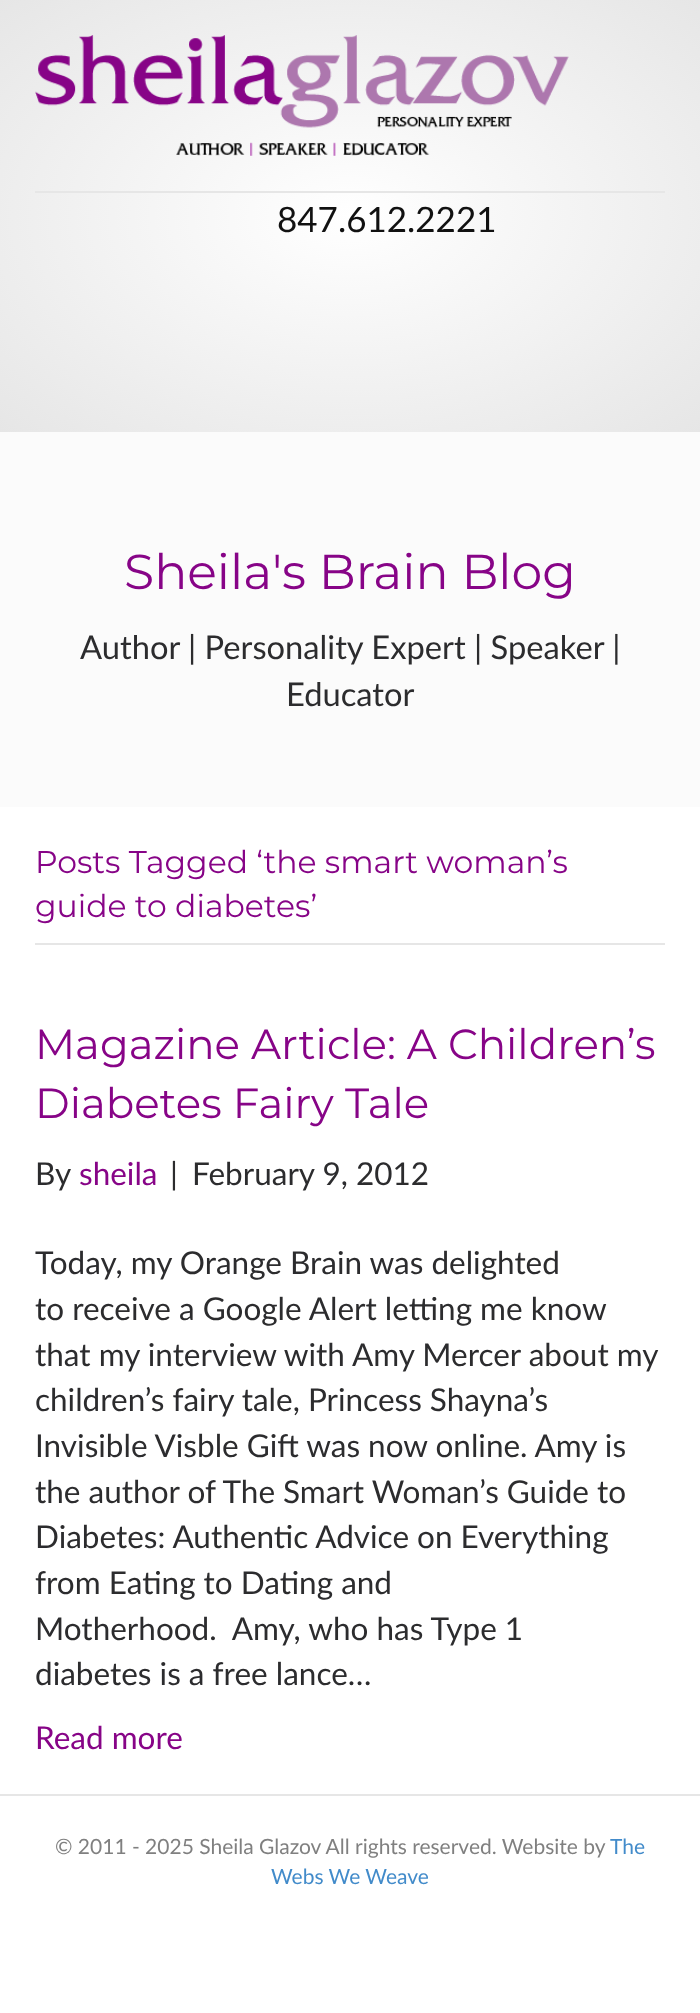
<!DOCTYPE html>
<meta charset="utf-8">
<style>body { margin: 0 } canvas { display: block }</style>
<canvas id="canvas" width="700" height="2013"></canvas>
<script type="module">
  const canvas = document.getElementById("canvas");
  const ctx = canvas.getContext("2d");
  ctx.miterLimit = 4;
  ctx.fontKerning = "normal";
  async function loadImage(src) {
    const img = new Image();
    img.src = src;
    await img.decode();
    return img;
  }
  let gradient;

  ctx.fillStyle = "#ffffff";
  ctx.fillRect(0, 0, 700, 2013);
  gradient = ctx.createRadialGradient(350, 349.41, 0, 350, 349.41, 495);
  gradient.addColorStop(0, "#ffffff");
  gradient.addColorStop(1, "#e6e6e6");
  ctx.fillStyle = gradient;
  ctx.beginPath();
  ctx.rect(0, 0, 700, 432);
  ctx.save();
  ctx.clip();
  ctx.scale(1, 306 / 495);
  ctx.fillRect(0, 0, 700, 3257);
  ctx.restore();
  ctx.drawImage(await loadImage("img1.png"), 35, 35, 534, 121);
  ctx.fillStyle = "#e6e6e6";
  ctx.fillRect(35, 191, 630, 2);
  ctx.font = "35px Lato";
  ctx.fillStyle = "#111111";
  ctx.fillText("847.612.2221", 277, 232);
  ctx.fillStyle = "#fbfbfb";
  ctx.fillRect(0, 432, 700, 375);
  ctx.font = "49px Montserrat";
  ctx.fillStyle = "#870487";
  ctx.fillText("Sheila's Brain Blog", 124, 589);
  ctx.font = "32.7px Lato";
  ctx.fillStyle = "#2c2c2e";
  ctx.fillText("Author | Personality Expert | Speaker |", 80, 659);
  ctx.fillText("Educator", 286, 706);
  ctx.fillStyle = "#e6e6e6";
  ctx.fillRect(35, 943, 630, 2);
  ctx.font = "31.5px Montserrat";
  ctx.fillStyle = "#870487";
  ctx.fillText("Posts Tagged ‘the smart woman’s", 35, 873);
  ctx.fillText("guide to diabetes’", 35, 917);
  ctx.font = "42px Montserrat";
  ctx.fillText("Magazine Article: A Children’s", 35, 1059);
  ctx.fillText("Diabetes Fairy Tale", 35, 1118);
  ctx.font = "31.5px Lato";
  ctx.fillStyle = "#2c2c2e";
  ctx.fillText("By", 35, 1185);
  ctx.fillStyle = "#870487";
  ctx.fillText("sheila", 79, 1185);
  ctx.fillStyle = "#2c2c2e";
  ctx.fillText("|", 170, 1185);
  ctx.fillText("February 9, 2012", 192, 1185);
  ctx.fillText("Today, my Orange Brain was delighted", 35, 1274);
  ctx.fillText("to receive a Google Alert letting me know", 35, 1320);
  ctx.fillText("that my interview with Amy Mercer about my", 35, 1366);
  ctx.fillText("children’s fairy tale, Princess Shayna’s", 35, 1411);
  ctx.fillText("Invisible Visble Gift was now online. Amy is", 35, 1457);
  ctx.fillText("the author of The Smart Woman’s Guide to", 35, 1503);
  ctx.fillText("Diabetes: Authentic Advice on Everything", 35, 1548);
  ctx.fillText("from Eating to Dating and", 35, 1594);
  ctx.fillText("Motherhood.  Amy, who has Type 1", 35, 1640);
  ctx.fillText("diabetes is a free lance…", 35, 1685);
  ctx.fillStyle = "#870487";
  ctx.fillText("Read more", 35, 1749);
  ctx.fillStyle = "#e6e6e6";
  ctx.fillRect(0, 1794, 700, 2);
  ctx.font = "21px Lato";
  ctx.fillStyle = "#808080";
  ctx.fillText("© 2011 - 2025 Sheila Glazov All rights reserved. Website by", 55, 1854);
  ctx.fillStyle = "#428bca";
  ctx.fillText("The", 610, 1854);
  ctx.fillText("Webs We Weave", 271, 1884);
</script>
